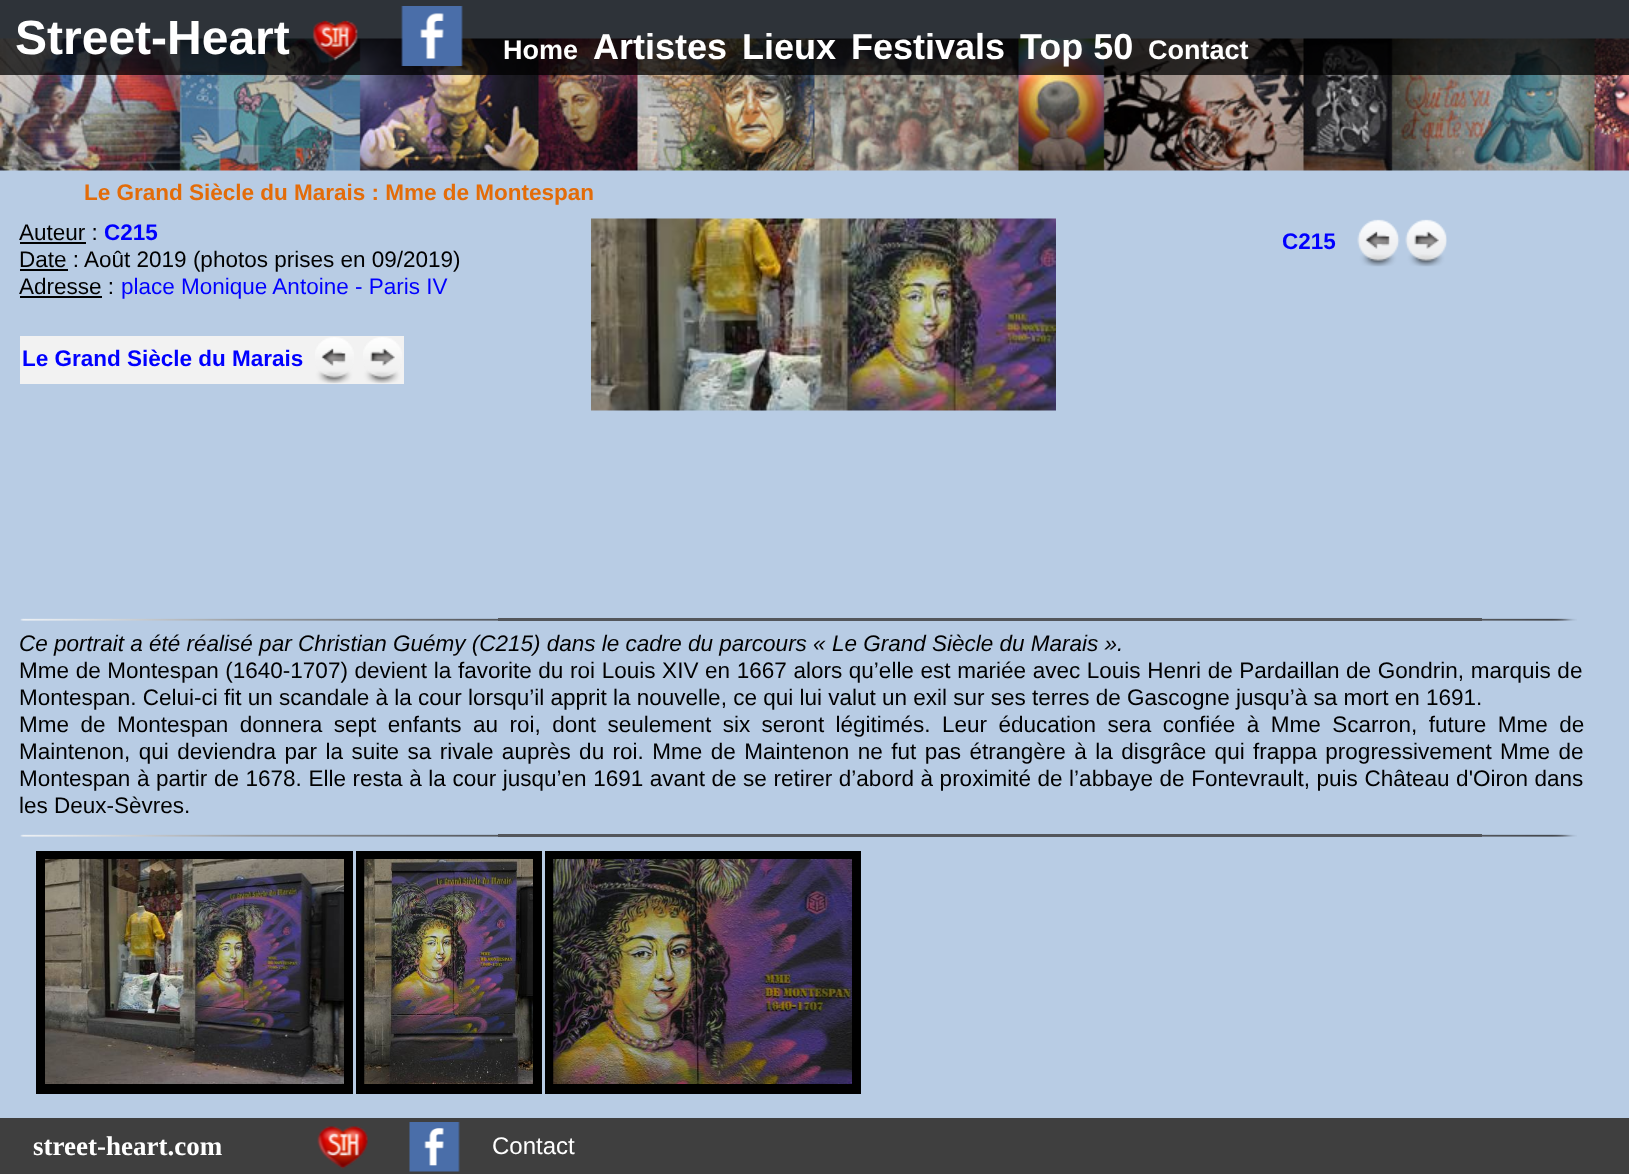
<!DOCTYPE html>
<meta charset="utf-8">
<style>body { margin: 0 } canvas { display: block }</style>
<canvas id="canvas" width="1629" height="1174"></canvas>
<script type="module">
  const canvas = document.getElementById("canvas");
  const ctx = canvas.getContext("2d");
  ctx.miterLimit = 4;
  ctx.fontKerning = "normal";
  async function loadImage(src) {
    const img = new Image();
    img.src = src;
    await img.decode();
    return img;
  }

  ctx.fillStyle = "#b8cce4";
  ctx.fillRect(0, 0, 1629, 1174);
  ctx.drawImage(await loadImage("img3.png"), 0, 38, 1629, 133);
  ctx.fillStyle = "rgba(0, 0, 0, 0.75)";
  ctx.fillRect(0, 0, 1629, 75);
  ctx.font = "bold 48px Liberation Sans";
  ctx.fillStyle = "#ffffff";
  ctx.fillText("Street-Heart", 15, 54);
  ctx.drawImage(await loadImage("img1.png"), 312, 20, 46, 41);
  ctx.drawImage(await loadImage("img2.png"), 401, 6, 62, 60);
  ctx.font = "bold 27px Liberation Sans";
  ctx.fillText("Home", 503, 59);
  ctx.font = "bold 36px Liberation Sans";
  ctx.fillText("Artistes", 593, 59);
  ctx.fillText("Lieux", 742, 59);
  ctx.fillText("Festivals", 851, 59);
  ctx.fillText("Top 50", 1020, 59);
  ctx.font = "bold 27px Liberation Sans";
  ctx.fillText("Contact", 1148, 59);
  ctx.font = "bold 22.5px Liberation Sans";
  ctx.fillStyle = "#e36c09";
  ctx.fillText("Le Grand Siècle du Marais : Mme de Montespan", 84, 200);
  ctx.font = "22.5px Liberation Sans";
  ctx.fillStyle = "#000000";
  ctx.fillText("Auteur :", 19, 240);
  ctx.fillRect(20, 242, 66, 2);
  ctx.font = "bold 22.5px Liberation Sans";
  ctx.fillStyle = "#0000ff";
  ctx.fillText("C215", 104, 240);
  ctx.fillStyle = "#000000";
  ctx.fillRect(20, 269, 48, 2);
  ctx.font = "22.5px Liberation Sans";
  ctx.fillText("Date : Août 2019 (photos prises en 09/2019)", 19, 267);
  ctx.fillText("Adresse :", 19, 294);
  ctx.fillRect(20, 296, 82, 2);
  ctx.fillStyle = "#0000ff";
  ctx.fillText("place Monique Antoine - Paris IV", 121, 294);
  ctx.fillStyle = "#f2f2f2";
  ctx.fillRect(20, 336, 384, 48);
  ctx.font = "bold 22.5px Liberation Sans";
  ctx.fillStyle = "#0000ff";
  ctx.fillText("Le Grand Siècle du Marais", 22, 366);
  ctx.drawImage(await loadImage("img4.png"), 315, 337, 39, 47);
  ctx.drawImage(await loadImage("img5.png"), 363, 337, 39, 47);
  ctx.drawImage(await loadImage("img6.png"), 591, 218, 465, 193);
  ctx.fillText("C215", 1282, 249);
  ctx.drawImage(await loadImage("img7.png"), 1357, 219, 43, 48);
  ctx.drawImage(await loadImage("img8.png"), 1405, 219, 42, 48);
  ctx.drawImage(await loadImage("img9.png"), 20, 618, 478, 3);
  ctx.fillStyle = "#53565b";
  ctx.fillRect(498, 618, 984, 3);
  ctx.drawImage(await loadImage("img10.png"), 1482, 618, 95, 3);
  ctx.font = "italic 22.5px Liberation Sans";
  ctx.fillStyle = "#000000";
  ctx.fillText("Ce portrait a été réalisé par Christian Guémy (C215) dans le cadre du parcours « Le Grand Siècle du Marais ».", 19, 651);
  ctx.wordSpacing = "0.4px";
  ctx.font = "22.5px Liberation Sans";
  ctx.fillText("Mme de Montespan (1640-1707) devient la favorite du roi Louis XIV en 1667 alors qu’elle est mariée avec Louis Henri de Pardaillan de Gondrin, marquis de", 19, 678);
  ctx.wordSpacing = "0px";
  ctx.fillText("Montespan. Celui-ci fit un scandale à la cour lorsqu’il apprit la nouvelle, ce qui lui valut un exil sur ses terres de Gascogne jusqu’à sa mort en 1691.", 19, 705);
  ctx.wordSpacing = "5.2px";
  ctx.fillText("Mme de Montespan donnera sept enfants au roi, dont seulement six seront légitimés. Leur éducation sera confiée à Mme Scarron, future Mme de", 19, 732);
  ctx.wordSpacing = "2.2px";
  ctx.fillText("Maintenon, qui deviendra par la suite sa rivale auprès du roi. Mme de Maintenon ne fut pas étrangère à la disgrâce qui frappa progressivement Mme de", 19, 759);
  ctx.wordSpacing = "0.35px";
  ctx.fillText("Montespan à partir de 1678. Elle resta à la cour jusqu’en 1691 avant de se retirer d’abord à proximité de l’abbaye de Fontevrault, puis Château d'Oiron dans", 19, 786);
  ctx.wordSpacing = "0px";
  ctx.fillText("les Deux-Sèvres.", 19, 813);
  ctx.drawImage(await loadImage("img9.png"), 20, 834, 478, 3);
  ctx.fillStyle = "#53565b";
  ctx.fillRect(498, 834, 984, 3);
  ctx.drawImage(await loadImage("img10.png"), 1482, 834, 95, 3);
  ctx.fillStyle = "#000000";
  ctx.fillRect(36, 851, 317, 243);
  ctx.drawImage(await loadImage("img11.png"), 45, 859, 299, 225);
  ctx.drawImage(await loadImage("img12.png"), 109, 860, 232, 224);
  ctx.fillRect(356, 851, 186, 243);
  ctx.drawImage(await loadImage("img13.png"), 364, 859, 169, 225);
  ctx.drawImage(await loadImage("img14.png"), 364, 859, 169, 225);
  ctx.fillRect(545, 851, 316, 243);
  ctx.drawImage(await loadImage("img15.png"), 553, 859, 299, 225);
  ctx.drawImage(await loadImage("img16.png"), 553, 859, 298, 225);
  ctx.fillStyle = "#3f3f3f";
  ctx.fillRect(0, 1118, 1629, 56);
  ctx.font = "bold 27px Liberation Serif";
  ctx.fillStyle = "#ffffff";
  ctx.fillText("street-heart.com", 33, 1155);
  ctx.drawImage(await loadImage("img17.png"), 317, 1126, 51, 43);
  ctx.drawImage(await loadImage("img18.png"), 409, 1122, 51, 50);
  ctx.font = "24px Liberation Sans";
  ctx.fillText("Contact", 492, 1154);
</script>
